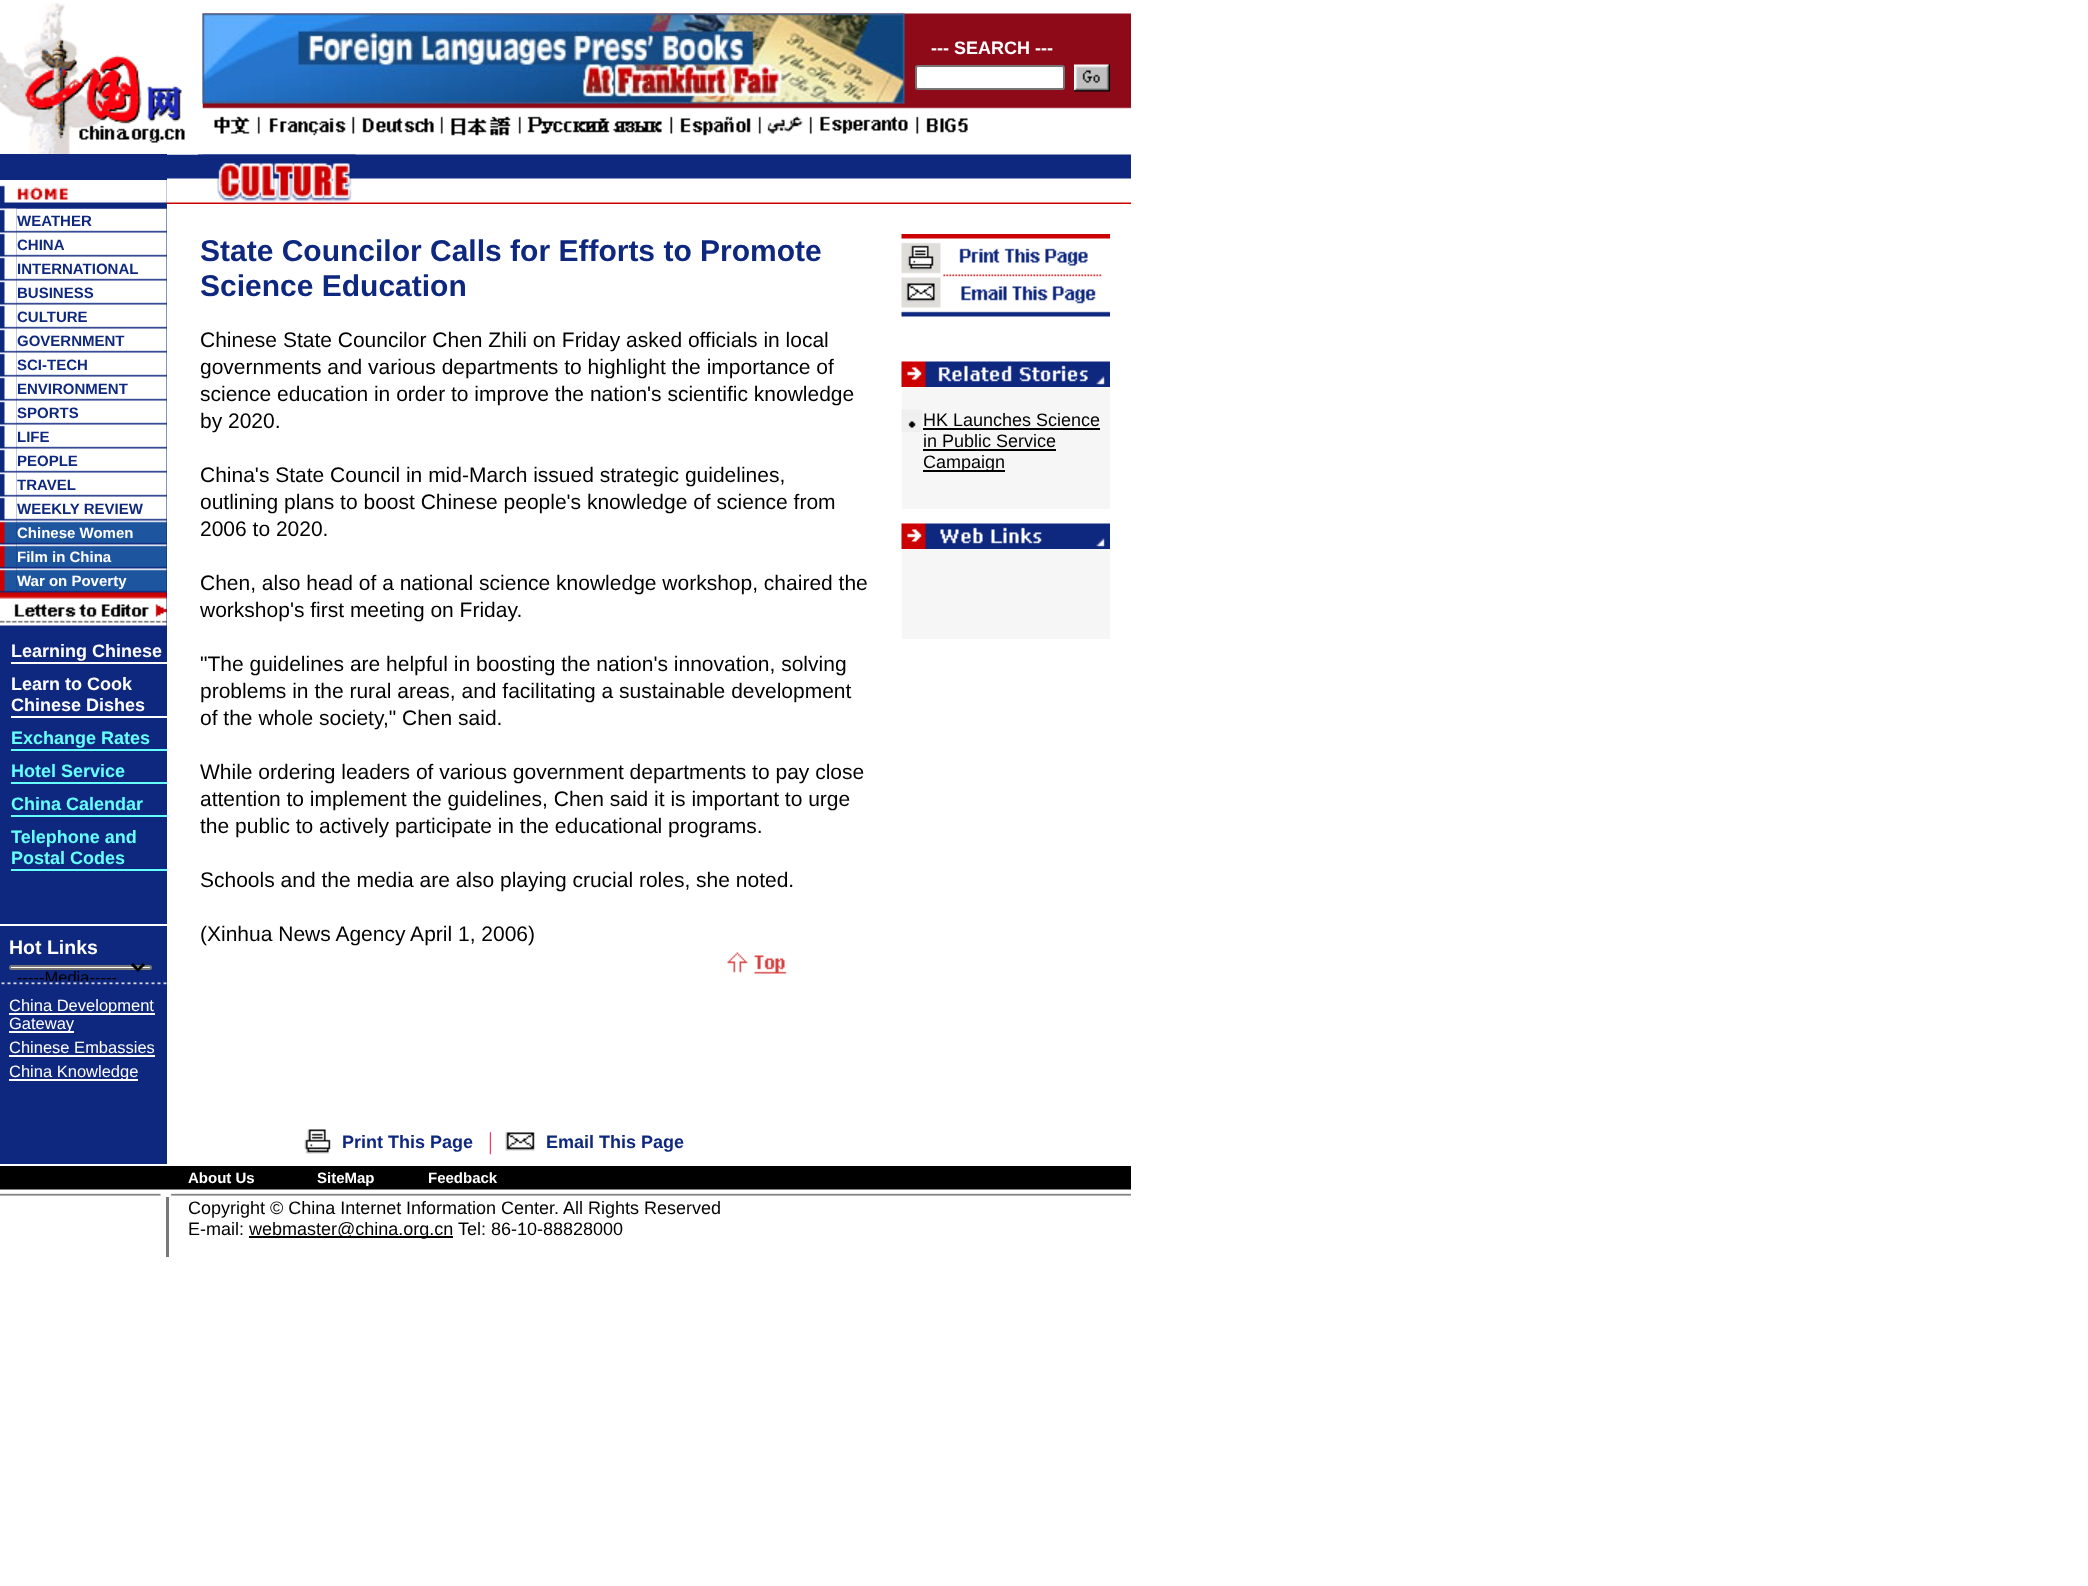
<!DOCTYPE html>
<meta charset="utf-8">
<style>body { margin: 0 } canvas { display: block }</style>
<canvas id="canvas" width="2088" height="1586"></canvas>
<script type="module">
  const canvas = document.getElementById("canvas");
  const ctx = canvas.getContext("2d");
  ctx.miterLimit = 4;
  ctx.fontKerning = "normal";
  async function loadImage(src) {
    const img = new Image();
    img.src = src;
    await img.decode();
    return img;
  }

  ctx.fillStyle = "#ffffff";
  ctx.fillRect(0, 0, 2088, 1586);
  ctx.drawImage(await loadImage("img2.png"), 202, 13, 929, 96);
  ctx.fillStyle = "#0f287f";
  ctx.fillRect(0, 180, 167, 984);
  ctx.drawImage(await loadImage("img17.png"), 166, 154, 965, 50);
  ctx.drawImage(await loadImage("img1.png"), 0, 3, 203, 152);
  ctx.drawImage(await loadImage("img3.png"), 202, 13, 703, 91);
  ctx.font = "bold 18px Liberation Sans";
  ctx.fillStyle = "#ffffff";
  ctx.fillText("--- SEARCH ---", 931, 54);
  ctx.beginPath();
  ctx.roundRect(916, 66, 148, 23, 2);
  ctx.fill();
  ctx.strokeStyle = "#767676";
  ctx.lineWidth = 2;
  ctx.stroke();
  ctx.drawImage(await loadImage("img4.png"), 1074, 64, 36, 28);
  ctx.drawImage(await loadImage("img5.png"), 214, 116, 754, 20);
  ctx.fillStyle = "#0f287f";
  ctx.fillRect(0, 154, 167, 26);
  ctx.drawImage(await loadImage("img8.png"), 16, 208, 151, 24);
  ctx.drawImage(await loadImage("img6.png"), 0, 180, 167, 29);
  ctx.drawImage(await loadImage("img8.png"), 16, 232, 151, 24);
  ctx.drawImage(await loadImage("img7.png"), 0, 208, 17, 25);
  ctx.font = "bold 15px Liberation Sans";
  ctx.fillText("WEATHER", 17, 226);
  ctx.drawImage(await loadImage("img8.png"), 16, 256, 151, 24);
  ctx.drawImage(await loadImage("img9.png"), 0, 232, 17, 25);
  ctx.fillText("CHINA", 17, 250);
  ctx.drawImage(await loadImage("img8.png"), 16, 280, 151, 24);
  ctx.drawImage(await loadImage("img9.png"), 0, 256, 17, 25);
  ctx.fillText("INTERNATIONAL", 17, 274);
  ctx.drawImage(await loadImage("img8.png"), 16, 304, 151, 24);
  ctx.drawImage(await loadImage("img9.png"), 0, 280, 17, 25);
  ctx.fillText("BUSINESS", 17, 298);
  ctx.drawImage(await loadImage("img8.png"), 16, 328, 151, 24);
  ctx.drawImage(await loadImage("img9.png"), 0, 304, 17, 25);
  ctx.fillText("CULTURE", 17, 322);
  ctx.drawImage(await loadImage("img8.png"), 16, 352, 151, 24);
  ctx.drawImage(await loadImage("img9.png"), 0, 328, 17, 25);
  ctx.fillText("GOVERNMENT", 17, 346);
  ctx.drawImage(await loadImage("img8.png"), 16, 376, 151, 24);
  ctx.drawImage(await loadImage("img9.png"), 0, 352, 17, 25);
  ctx.fillText("SCI-TECH", 17, 370);
  ctx.drawImage(await loadImage("img8.png"), 16, 400, 151, 24);
  ctx.drawImage(await loadImage("img9.png"), 0, 376, 17, 25);
  ctx.fillText("ENVIRONMENT", 17, 394);
  ctx.drawImage(await loadImage("img8.png"), 16, 424, 151, 24);
  ctx.drawImage(await loadImage("img9.png"), 0, 400, 17, 25);
  ctx.fillText("SPORTS", 17, 418);
  ctx.drawImage(await loadImage("img8.png"), 16, 448, 151, 24);
  ctx.drawImage(await loadImage("img9.png"), 0, 424, 17, 25);
  ctx.fillText("LIFE", 17, 442);
  ctx.drawImage(await loadImage("img8.png"), 16, 472, 151, 24);
  ctx.drawImage(await loadImage("img9.png"), 0, 448, 17, 25);
  ctx.fillText("PEOPLE", 17, 466);
  ctx.drawImage(await loadImage("img8.png"), 16, 496, 151, 24);
  ctx.drawImage(await loadImage("img9.png"), 0, 472, 17, 25);
  ctx.fillText("TRAVEL", 17, 490);
  ctx.drawImage(await loadImage("img11.png"), 16, 520, 151, 24);
  ctx.drawImage(await loadImage("img9.png"), 0, 496, 17, 25);
  ctx.fillText("WEEKLY REVIEW", 17, 514);
  ctx.drawImage(await loadImage("img12.png"), 16, 544, 151, 24);
  ctx.drawImage(await loadImage("img10.png"), 0, 520, 17, 25);
  ctx.fillStyle = "#ffffff";
  ctx.fillText("Chinese Women", 17, 538);
  ctx.drawImage(await loadImage("img14.png"), 16, 568, 151, 24);
  ctx.drawImage(await loadImage("img10.png"), 0, 544, 17, 25);
  ctx.fillText("Film in China", 17, 562);
  ctx.drawImage(await loadImage("img13.png"), 0, 568, 17, 24);
  ctx.fillText("War on Poverty", 17, 586);
  ctx.drawImage(await loadImage("img15.png"), 0, 592, 167, 34);
  ctx.font = "bold 18px Liberation Sans";
  ctx.fillText("Learning Chinese", 11, 657);
  ctx.fillRect(11, 662, 156, 2);
  ctx.fillText("Learn to Cook", 11, 690);
  ctx.fillText("Chinese Dishes", 11, 711);
  ctx.fillRect(11, 716, 156, 2);
  ctx.fillStyle = "#66ffff";
  ctx.fillText("Exchange Rates", 11, 744);
  ctx.fillRect(11, 749, 156, 2);
  ctx.fillText("Hotel Service", 11, 777);
  ctx.fillRect(11, 782, 156, 2);
  ctx.fillText("China Calendar", 11, 810);
  ctx.fillRect(11, 815, 156, 2);
  ctx.fillText("Telephone and", 11, 843);
  ctx.fillText("Postal Codes", 11, 864);
  ctx.fillRect(11, 869, 156, 2);
  ctx.fillStyle = "#ffffff";
  ctx.fillRect(0, 924, 167, 2);
  ctx.font = "bold 19.5px Liberation Sans";
  ctx.fillText("Hot Links", 9, 954);
  ctx.beginPath();
  ctx.roundRect(10, 966, 141, 3, 1.5);
  ctx.fill();
  ctx.stroke();
  ctx.beginPath();
  ctx.moveTo(132, 964);
  ctx.lineTo(138, 970);
  ctx.lineTo(144, 964);
  ctx.strokeStyle = "#000000";
  ctx.lineWidth = 3;
  ctx.stroke();
  ctx.font = "16.5px Liberation Sans";
  ctx.fillStyle = "#000000";
  ctx.fillText("-----Media-----", 17, 983);
  ctx.drawImage(await loadImage("img16.png"), 1, 981, 166, 4);
  ctx.fillStyle = "#ffffff";
  ctx.fillRect(9, 1013, 146, 2);
  ctx.fillText("China Development", 9, 1011);
  ctx.fillRect(9, 1031, 65, 2);
  ctx.fillText("Gateway", 9, 1029);
  ctx.fillText("Chinese Embassies", 9, 1053);
  ctx.fillRect(9, 1055, 146, 2);
  ctx.fillRect(9, 1079, 129, 2);
  ctx.fillText("China Knowledge", 9, 1077);
  ctx.drawImage(await loadImage("img18.png"), 198, 154, 158, 50);
  ctx.font = "bold 30px Liberation Sans";
  ctx.fillStyle = "#0f287f";
  ctx.fillText("State Councilor Calls for Efforts to Promote", 200, 261);
  ctx.fillText("Science Education", 200, 296);
  ctx.font = "21px Liberation Sans";
  ctx.fillStyle = "#000000";
  ctx.fillText("Chinese State Councilor Chen Zhili on Friday asked officials in local", 200, 347);
  ctx.fillText("governments and various departments to highlight the importance of", 200, 374);
  ctx.fillText("science education in order to improve the nation's scientific knowledge", 200, 401);
  ctx.fillText("by 2020.", 200, 428);
  ctx.fillText("China's State Council in mid-March issued strategic guidelines,", 200, 482);
  ctx.fillText("outlining plans to boost Chinese people's knowledge of science from", 200, 509);
  ctx.fillText("2006 to 2020.", 200, 536);
  ctx.fillText("Chen, also head of a national science knowledge workshop, chaired the", 200, 590);
  ctx.fillText("workshop's first meeting on Friday.", 200, 617);
  ctx.fillText("\"The guidelines are helpful in boosting the nation's innovation, solving", 200, 671);
  ctx.fillText("problems in the rural areas, and facilitating a sustainable development", 200, 698);
  ctx.fillText("of the whole society,\" Chen said.", 200, 725);
  ctx.fillText("While ordering leaders of various government departments to pay close", 200, 779);
  ctx.fillText("attention to implement the guidelines, Chen said it is important to urge", 200, 806);
  ctx.fillText("the public to actively participate in the educational programs.", 200, 833);
  ctx.fillText("Schools and the media are also playing crucial roles, she noted.", 200, 887);
  ctx.fillText("(Xinhua News Agency April 1, 2006)", 200, 941);
  ctx.drawImage(await loadImage("img19.png"), 727, 952, 60, 22);
  ctx.drawImage(await loadImage("img20.png"), 901, 234, 209, 83);
  ctx.drawImage(await loadImage("img21.png"), 901, 361, 209, 26);
  ctx.fillStyle = "#f6f6f6";
  ctx.fillRect(902, 387, 208, 122);
  ctx.drawImage(await loadImage("img22.png"), 901, 409, 21, 23);
  ctx.font = "18px Liberation Sans";
  ctx.fillStyle = "#000000";
  ctx.fillText("HK Launches Science", 923, 426);
  ctx.fillRect(923, 428, 177, 2);
  ctx.fillText("in Public Service", 923, 447);
  ctx.fillRect(923, 449, 133, 2);
  ctx.fillRect(923, 470, 82, 2);
  ctx.fillText("Campaign", 923, 468);
  ctx.drawImage(await loadImage("img23.png"), 901, 523, 209, 26);
  ctx.fillStyle = "#f6f6f6";
  ctx.fillRect(902, 549, 208, 90);
  ctx.drawImage(await loadImage("img24.png"), 304, 1129, 27, 25);
  ctx.font = "bold 18px Liberation Sans";
  ctx.fillStyle = "#0f287f";
  ctx.fillText("Print This Page", 342, 1148);
  ctx.font = "24px Liberation Serif";
  ctx.fillStyle = "#ff3366";
  ctx.fillText("|", 488, 1149);
  ctx.drawImage(await loadImage("img25.png"), 505, 1132, 30, 19);
  ctx.font = "bold 18px Liberation Sans";
  ctx.fillStyle = "#0f287f";
  ctx.fillText("Email This Page", 546, 1148);
  ctx.fillStyle = "#000000";
  ctx.fillRect(0, 1166, 1131, 24);
  ctx.font = "bold 15px Liberation Sans";
  ctx.fillStyle = "#ffffff";
  ctx.fillText("About Us", 188, 1183);
  ctx.fillText("SiteMap", 317, 1183);
  ctx.fillText("Feedback", 428, 1183);
  ctx.drawImage(await loadImage("img26.png"), 0, 1189, 1131, 7);
  ctx.fillStyle = "#797979";
  ctx.fillRect(166, 1197, 3, 60);
  ctx.font = "18px Liberation Sans";
  ctx.fillStyle = "#000000";
  ctx.fillText("Copyright © China Internet", 188, 1214);
  ctx.fillText("Information Center.", 406, 1214);
  ctx.fillText("All Rights Reserved", 563, 1214);
  ctx.fillText("E-mail:", 188, 1235);
  ctx.fillRect(249, 1236, 204, 2);
  ctx.fillText("webmaster@china.org.cn", 249, 1235);
  ctx.fillText("Tel: 86-10-88828000", 458, 1235);
</script>
